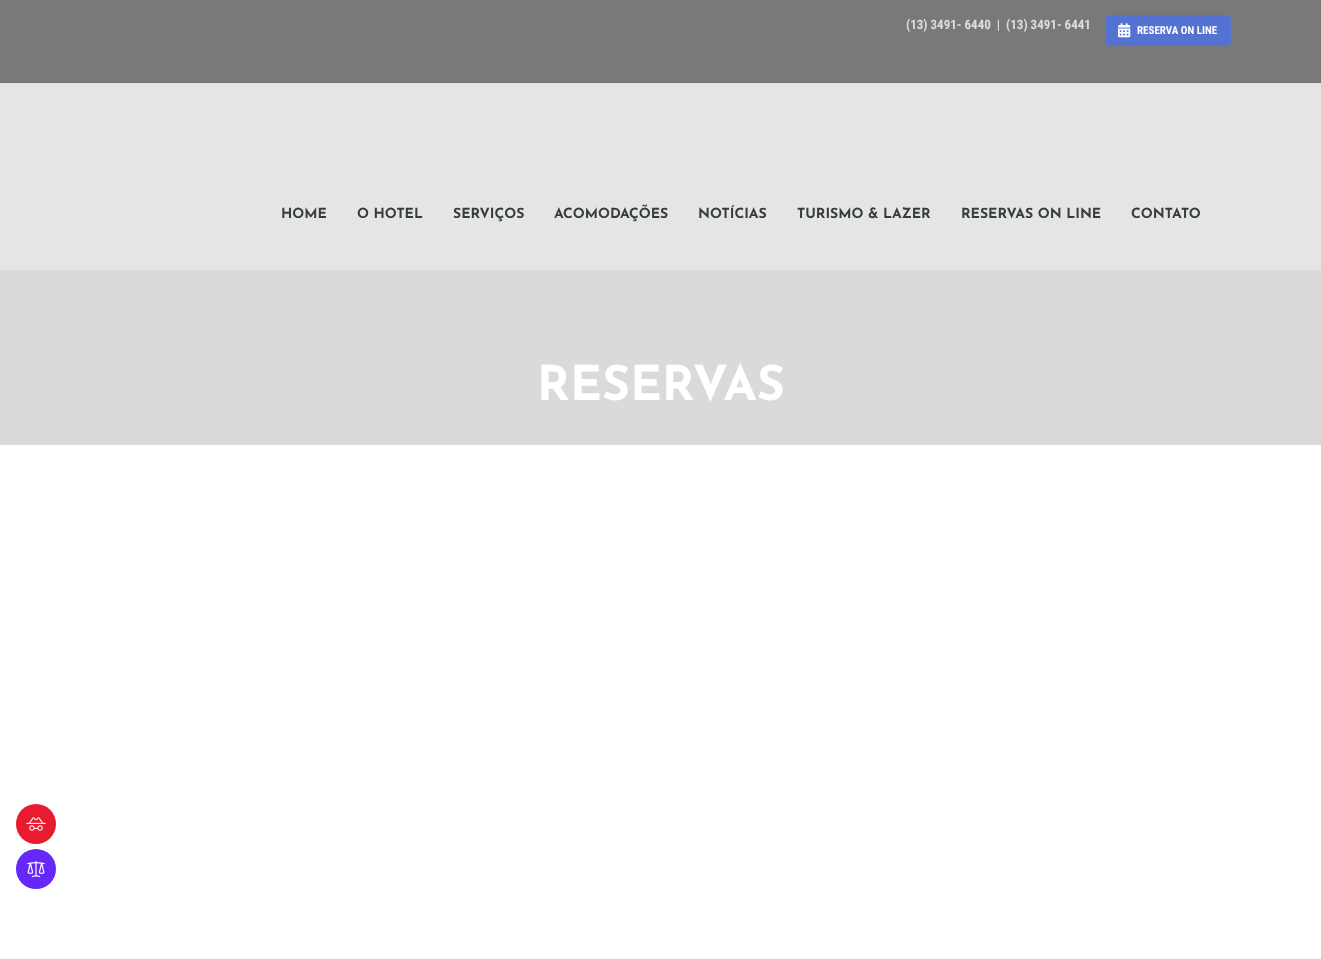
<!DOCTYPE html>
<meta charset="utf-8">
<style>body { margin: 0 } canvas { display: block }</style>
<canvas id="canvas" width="1321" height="959"></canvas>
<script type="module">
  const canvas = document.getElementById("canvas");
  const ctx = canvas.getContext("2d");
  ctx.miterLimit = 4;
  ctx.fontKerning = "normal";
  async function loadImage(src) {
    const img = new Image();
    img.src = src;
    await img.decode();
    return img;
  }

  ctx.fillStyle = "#ffffff";
  ctx.fillRect(0, 0, 1321, 959);
  ctx.fillStyle = "#dadada";
  ctx.fillRect(0, 270, 1321, 175);
  ctx.fillStyle = "#797979";
  ctx.fillRect(0, 0, 1321, 83);
  ctx.font = "bold 13px Roboto Condensed";
  ctx.fillStyle = "#dedede";
  ctx.fillText("(13) 3491- 6440  |  (13) 3491- 6441", 906, 29);
  ctx.fillStyle = "#5472d2";
  ctx.beginPath();
  ctx.roundRect(1105, 15, 126, 31, 5);
  ctx.fill();
  ctx.drawImage(await loadImage("img1.png"), 1118, 23, 13, 15);
  ctx.font = "bold 11px Roboto Condensed";
  ctx.fillStyle = "#ffffff";
  ctx.fillText("RESERVA ON LINE", 1137, 34);
  ctx.fillStyle = "#e5e5e5";
  ctx.fillRect(0, 83, 1321, 187);
  ctx.font = "bold 14px Josefin Sans";
  ctx.fillStyle = "#363d40";
  ctx.fillText("HOME", 281, 218);
  ctx.fillText("O HOTEL", 357, 218);
  ctx.fillText("SERVIÇOS", 453, 218);
  ctx.fillText("ACOMODAÇÕES", 554, 218);
  ctx.fillText("NOTÍCIAS", 698, 218);
  ctx.fillText("TURISMO & LAZER", 797, 218);
  ctx.fillText("RESERVAS ON LINE", 961, 218);
  ctx.fillText("CONTATO", 1131, 218);
  ctx.font = "bold 48px Josefin Sans";
  ctx.fillStyle = "#ffffff";
  ctx.fillText("RESERVAS", 537, 400);
  ctx.fillStyle = "#e81b30";
  ctx.beginPath();
  ctx.arc(36, 824, 20, 0, Math.PI * 2);
  ctx.fill();
  ctx.drawImage(await loadImage("img2.png"), 26, 817, 20, 14);
  ctx.fillStyle = "#6528f7";
  ctx.beginPath();
  ctx.arc(36, 869, 20, 0, Math.PI * 2);
  ctx.fill();
  ctx.drawImage(await loadImage("img3.png"), 27, 861, 18, 17);
</script>
